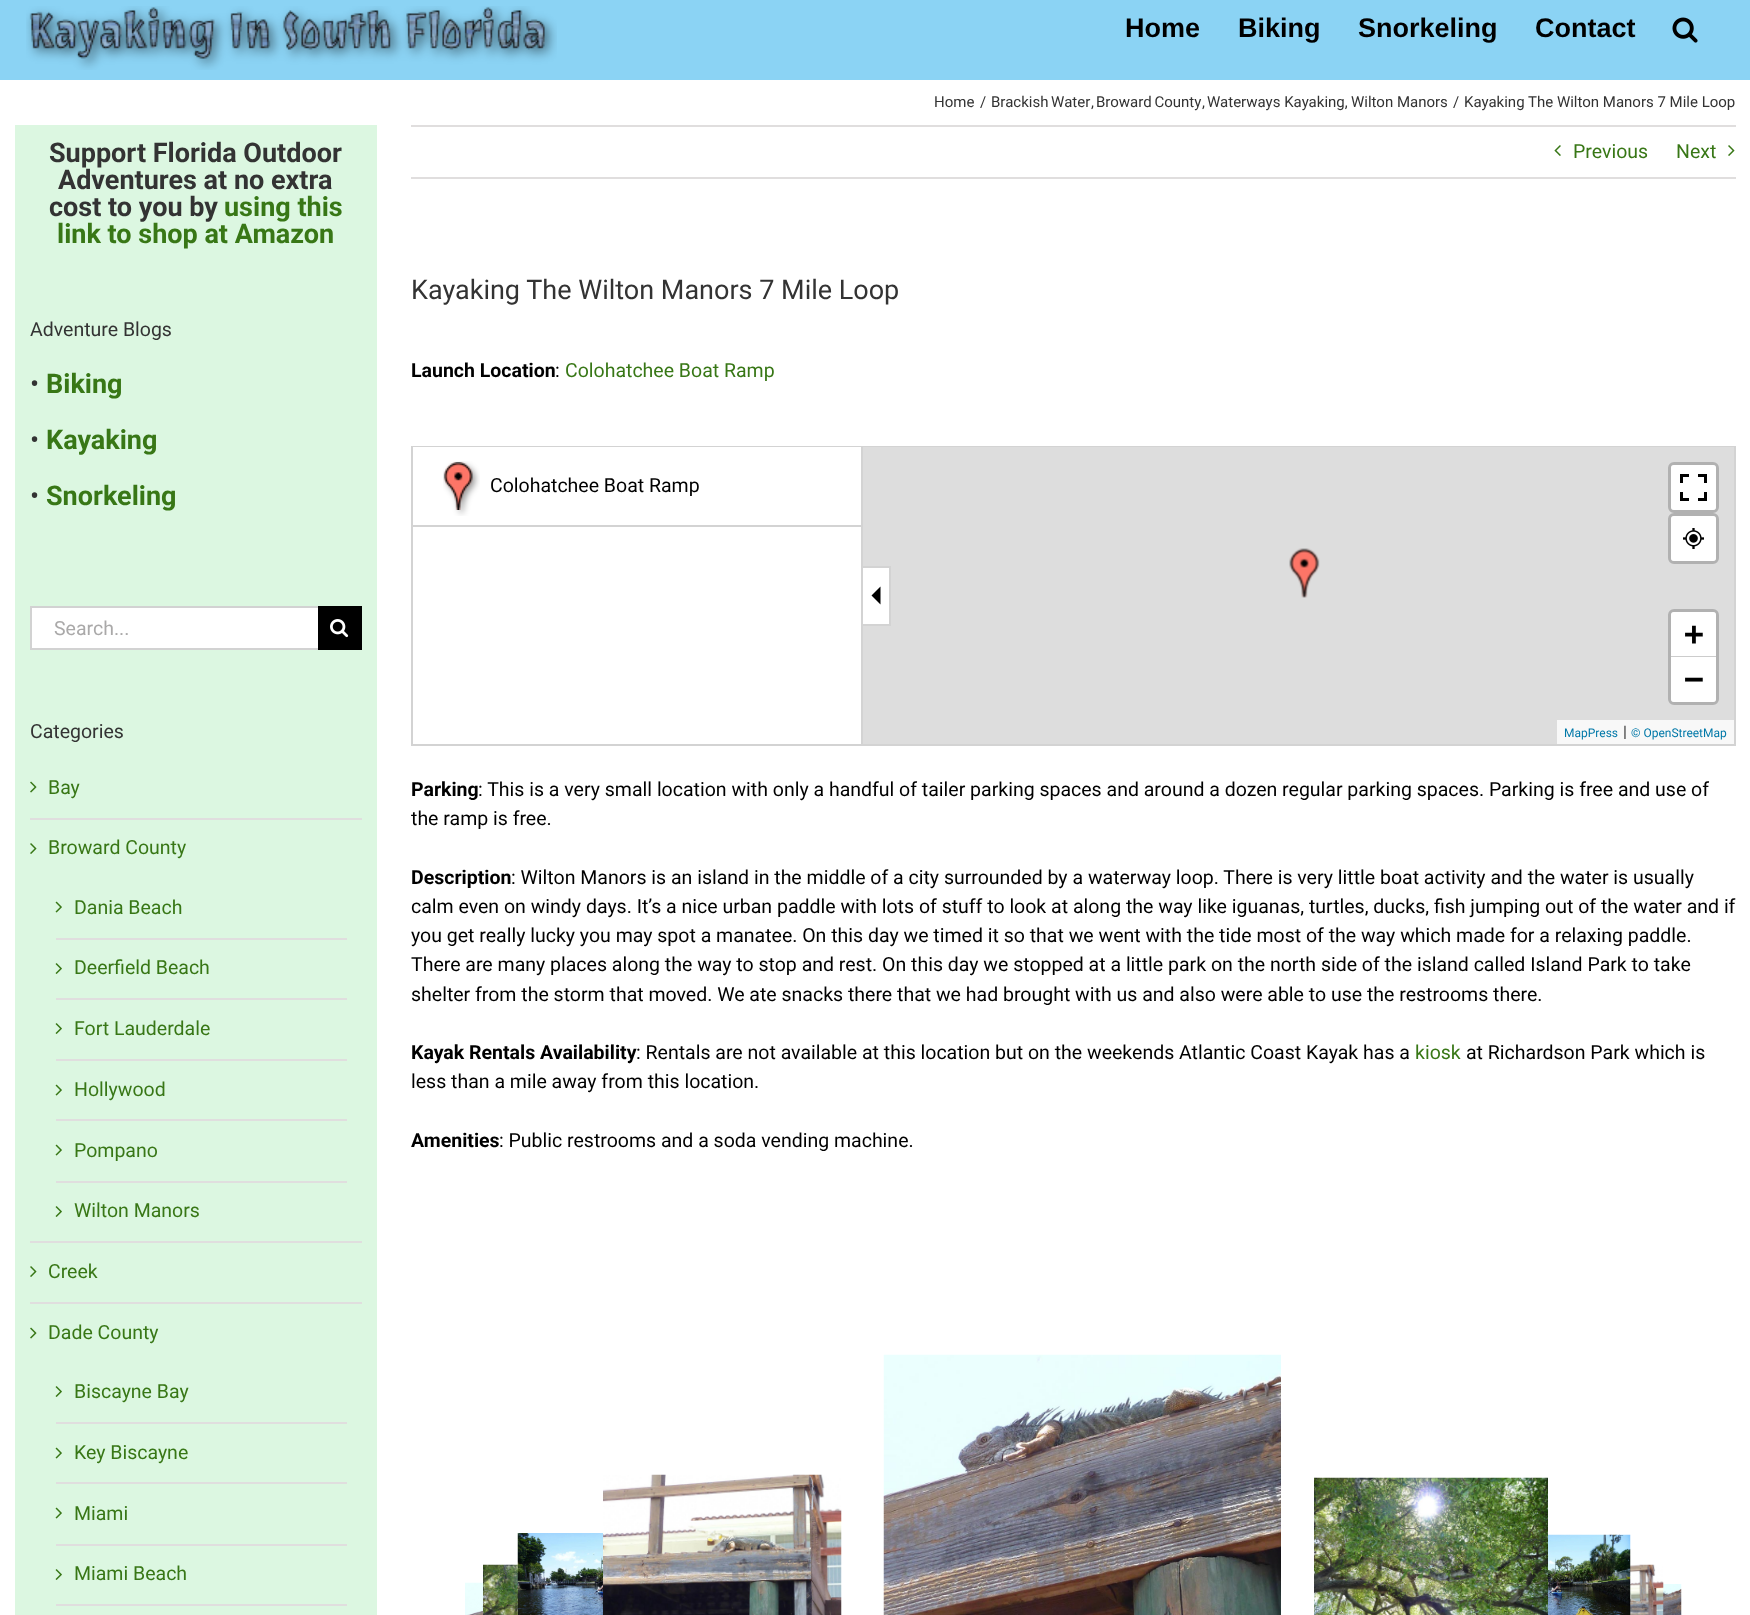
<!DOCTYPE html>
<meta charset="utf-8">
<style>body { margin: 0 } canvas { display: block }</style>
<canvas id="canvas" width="1750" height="1615"></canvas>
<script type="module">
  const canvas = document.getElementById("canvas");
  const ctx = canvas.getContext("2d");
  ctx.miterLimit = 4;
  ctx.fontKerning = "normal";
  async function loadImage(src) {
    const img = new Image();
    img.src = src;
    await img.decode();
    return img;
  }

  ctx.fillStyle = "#ffffff";
  ctx.fillRect(0, 0, 1750, 1615);
  ctx.fillStyle = "#8bd3f4";
  ctx.fillRect(0, 0, 1750, 80);
  ctx.drawImage(await loadImage("img1.png"), 26, 6, 531, 64);
  ctx.font = "bold 27px Liberation Sans";
  ctx.fillStyle = "#000000";
  ctx.fillText("Home", 1125, 37);
  ctx.fillText("Biking", 1238, 37);
  ctx.fillText("Snorkeling", 1358, 37);
  ctx.fillText("Contact", 1535, 37);
  ctx.drawImage(await loadImage("img2.png"), 1672, 17, 26, 26);
  ctx.font = "15px Roboto";
  ctx.fillStyle = "#333333";
  ctx.fillText("Home", 934, 107);
  ctx.fillText("/", 980, 107);
  ctx.wordSpacing = "-1px";
  ctx.fillText("Brackish Water", 991, 107);
  ctx.wordSpacing = "0px";
  ctx.fillText(",", 1091, 107);
  ctx.wordSpacing = "-1px";
  ctx.fillText("Broward County", 1096, 107);
  ctx.wordSpacing = "0px";
  ctx.fillText(",", 1202, 107);
  ctx.fillText("Waterways Kayaking,", 1207, 107);
  ctx.fillText("Wilton Manors", 1351, 107);
  ctx.fillText("/", 1453, 107);
  ctx.fillText("Kayaking The Wilton Manors 7 Mile Loop", 1464, 107);
  ctx.fillStyle = "#dcf7e1";
  ctx.fillRect(15, 125, 362, 1490);
  ctx.font = "bold 27px Roboto";
  ctx.fillStyle = "#333333";
  ctx.fillText("Support Florida Outdoor", 49, 162);
  ctx.fillText("Adventures at no extra", 58, 189);
  ctx.fillText("cost to you by", 49, 216);
  ctx.fillStyle = "#387716";
  ctx.fillText("using this", 224, 216);
  ctx.fillText("link to shop at Amazon", 57, 243);
  ctx.font = "19.5px Roboto";
  ctx.fillStyle = "#333333";
  ctx.fillText("Adventure Blogs", 30, 336);
  ctx.font = "27px Roboto";
  ctx.fillText("•", 30, 393);
  ctx.font = "bold 27px Roboto";
  ctx.fillStyle = "#387716";
  ctx.fillText("Biking", 46, 393);
  ctx.font = "27px Roboto";
  ctx.fillStyle = "#333333";
  ctx.fillText("•", 30, 449);
  ctx.font = "bold 27px Roboto";
  ctx.fillStyle = "#387716";
  ctx.fillText("Kayaking", 46, 449);
  ctx.font = "27px Roboto";
  ctx.fillStyle = "#333333";
  ctx.fillText("•", 30, 505);
  ctx.font = "bold 27px Roboto";
  ctx.fillStyle = "#387716";
  ctx.fillText("Snorkeling", 46, 505);
  ctx.fillStyle = "#ffffff";
  ctx.fillRect(32, 608, 286, 40);
  ctx.fillStyle = "#d2d2d2";
  ctx.fillRect(30, 606, 288, 2);
  ctx.fillRect(30, 648, 288, 2);
  ctx.fillRect(30, 606, 2, 44);
  ctx.font = "19.5px Roboto";
  ctx.fillStyle = "#aaa9a9";
  ctx.fillText("Search...", 54, 635);
  ctx.fillStyle = "#000000";
  ctx.fillRect(318, 606, 44, 44);
  ctx.drawImage(await loadImage("img3.png"), 330, 619, 19, 19);
  ctx.fillStyle = "#333333";
  ctx.fillText("Categories", 30, 738);
  ctx.fillStyle = "#e0dede";
  ctx.fillRect(30, 818, 332, 2);
  ctx.drawImage(await loadImage("img4.png"), 30, 781, 7, 12);
  ctx.fillStyle = "#387716";
  ctx.fillText("Bay", 48, 794);
  ctx.fillStyle = "#e0dede";
  ctx.fillRect(30, 1241, 332, 2);
  ctx.drawImage(await loadImage("img5.png"), 30, 843, 7, 11);
  ctx.fillStyle = "#387716";
  ctx.fillText("Broward County", 48, 854);
  ctx.fillStyle = "#e0dede";
  ctx.fillRect(56, 938, 291, 2);
  ctx.drawImage(await loadImage("img6.png"), 55, 901, 7, 12);
  ctx.fillStyle = "#387716";
  ctx.fillText("Dania Beach", 74, 914);
  ctx.fillStyle = "#e0dede";
  ctx.fillRect(56, 998, 291, 2);
  ctx.drawImage(await loadImage("img7.png"), 55, 963, 7, 11);
  ctx.fillStyle = "#387716";
  ctx.fillText("Deerfield Beach", 74, 974);
  ctx.fillStyle = "#e0dede";
  ctx.fillRect(56, 1059, 291, 2);
  ctx.drawImage(await loadImage("img7.png"), 55, 1023, 7, 11);
  ctx.fillStyle = "#387716";
  ctx.fillText("Fort Lauderdale", 74, 1035);
  ctx.fillStyle = "#e0dede";
  ctx.fillRect(56, 1119, 291, 2);
  ctx.drawImage(await loadImage("img6.png"), 55, 1084, 7, 12);
  ctx.fillStyle = "#387716";
  ctx.fillText("Hollywood", 74, 1096);
  ctx.fillStyle = "#e0dede";
  ctx.fillRect(56, 1181, 291, 2);
  ctx.drawImage(await loadImage("img6.png"), 55, 1144, 7, 12);
  ctx.fillStyle = "#387716";
  ctx.fillText("Pompano", 74, 1157);
  ctx.drawImage(await loadImage("img7.png"), 55, 1206, 7, 11);
  ctx.fillText("Wilton Manors", 74, 1217);
  ctx.fillStyle = "#e0dede";
  ctx.fillRect(30, 1302, 332, 2);
  ctx.drawImage(await loadImage("img5.png"), 30, 1266, 7, 11);
  ctx.fillStyle = "#387716";
  ctx.fillText("Creek", 48, 1278);
  ctx.drawImage(await loadImage("img4.png"), 30, 1327, 7, 12);
  ctx.fillText("Dade County", 48, 1339);
  ctx.fillStyle = "#e0dede";
  ctx.fillRect(56, 1422, 291, 2);
  ctx.drawImage(await loadImage("img7.png"), 55, 1386, 7, 11);
  ctx.fillStyle = "#387716";
  ctx.fillText("Biscayne Bay", 74, 1398);
  ctx.fillStyle = "#e0dede";
  ctx.fillRect(56, 1482, 291, 2);
  ctx.drawImage(await loadImage("img6.png"), 55, 1447, 7, 12);
  ctx.fillStyle = "#387716";
  ctx.fillText("Key Biscayne", 74, 1459);
  ctx.fillStyle = "#e0dede";
  ctx.fillRect(56, 1544, 291, 2);
  ctx.drawImage(await loadImage("img6.png"), 55, 1507, 7, 12);
  ctx.fillStyle = "#387716";
  ctx.fillText("Miami", 74, 1520);
  ctx.fillStyle = "#e0dede";
  ctx.fillRect(56, 1604, 291, 2);
  ctx.drawImage(await loadImage("img7.png"), 55, 1569, 7, 11);
  ctx.fillStyle = "#387716";
  ctx.fillText("Miami Beach", 74, 1580);
  ctx.fillStyle = "#e0dede";
  ctx.fillRect(411, 125, 1325, 2);
  ctx.fillRect(411, 177, 1325, 2);
  ctx.drawImage(await loadImage("img8.png"), 1554, 145, 7, 11);
  ctx.fillStyle = "#387716";
  ctx.fillText("Previous", 1573, 158);
  ctx.fillText("Next", 1676, 158);
  ctx.drawImage(await loadImage("img9.png"), 1728, 145, 7, 11);
  ctx.font = "27px Roboto";
  ctx.fillStyle = "#333333";
  ctx.fillText("Kayaking The Wilton Manors 7 Mile Loop", 411, 299);
  ctx.font = "bold 19.5px Roboto";
  ctx.fillStyle = "#000000";
  ctx.fillText("Launch Location", 411, 377);
  ctx.font = "19.5px Roboto";
  ctx.fillText(":", 555, 377);
  ctx.fillStyle = "#387716";
  ctx.fillText("Colohatchee Boat Ramp", 565, 377);
  ctx.strokeStyle = "#d3d3d3";
  ctx.lineWidth = 2;
  ctx.strokeRect(412, 447, 1323, 298);
  ctx.fillStyle = "#ffffff";
  ctx.fillRect(413, 447, 448, 1);
  ctx.fillStyle = "#d3d3d3";
  ctx.fillRect(861, 447, 2, 297);
  ctx.fillRect(413, 525, 448, 2);
  ctx.drawImage(await loadImage("img10.png"), 443, 461, 37, 55);
  ctx.fillStyle = "#000000";
  ctx.fillText("Colohatchee Boat Ramp", 490, 492);
  ctx.fillStyle = "#dddddd";
  ctx.fillRect(863, 447, 871, 297);
  ctx.fillStyle = "#ffffff";
  ctx.beginPath();
  ctx.rect(862, 567, 28, 58);
  ctx.fill();
  ctx.stroke();
  ctx.fillStyle = "#000000";
  ctx.beginPath();
  ctx.moveTo(880.5, 586.5);
  ctx.lineTo(880.5, 604.5);
  ctx.lineTo(871.5, 595.5);
  ctx.closePath();
  ctx.fill();
  ctx.beginPath();
  ctx.roundRect(1669.5, 463.5, 48, 48, 4.5);
  ctx.strokeStyle = "#b1b1b1";
  ctx.lineWidth = 3;
  ctx.stroke();
  ctx.fillStyle = "#ffffff";
  ctx.beginPath();
  ctx.roundRect(1671, 465, 45, 45, 3);
  ctx.fill();
  ctx.drawImage(await loadImage("img11.png"), 1680, 474, 27, 27);
  ctx.beginPath();
  ctx.roundRect(1669.5, 514.5, 48, 48, 4.5);
  ctx.stroke();
  ctx.beginPath();
  ctx.roundRect(1671, 516, 45, 45, 3);
  ctx.fill();
  ctx.drawImage(await loadImage("img12.png"), 1683, 528, 21, 21);
  ctx.drawImage(await loadImage("img13.png"), 1289, 548, 31, 50);
  ctx.beginPath();
  ctx.roundRect(1669.5, 610.5, 48, 93, 4.5);
  ctx.stroke();
  ctx.beginPath();
  ctx.roundRect(1671, 612, 45, 45, [3, 3, 0, 0]);
  ctx.fill();
  ctx.fillStyle = "#cccccc";
  ctx.fillRect(1671, 656, 45, 1);
  ctx.font = "bold 33px DejaVu Sans Mono";
  ctx.fillStyle = "#000000";
  ctx.fillText("+", 1684, 645);
  ctx.fillStyle = "#ffffff";
  ctx.beginPath();
  ctx.roundRect(1671, 657, 45, 45, [0, 0, 3, 3]);
  ctx.fill();
  ctx.fillStyle = "#000000";
  ctx.fillText("−", 1684, 690);
  ctx.fillStyle = "#f8f8f8";
  ctx.fillRect(1557, 720, 177, 24);
  ctx.font = "12px Roboto";
  ctx.fillStyle = "#0078a8";
  ctx.fillText("MapPress", 1564, 737);
  ctx.font = "16px Roboto";
  ctx.fillStyle = "#333333";
  ctx.fillText("|", 1623, 737);
  ctx.font = "12px Roboto";
  ctx.fillStyle = "#0078a8";
  ctx.fillText("© OpenStreetMap", 1631, 737);
  ctx.font = "bold 19.5px Roboto";
  ctx.fillStyle = "#000000";
  ctx.fillText("Parking", 411, 796);
  ctx.font = "19.5px Roboto";
  ctx.fillText(": This is a very small location with only a handful of tailer parking spaces and around a dozen regular parking spaces. Parking is free and use of", 478, 796);
  ctx.fillText("the ramp is free.", 411, 825);
  ctx.font = "bold 19.5px Roboto";
  ctx.fillText("Description", 411, 884);
  ctx.font = "19.5px Roboto";
  ctx.fillText(": Wilton Manors is an island in the middle of a city surrounded by a waterway loop. There is very little boat activity and the water is usually", 511, 884);
  ctx.fillText("calm even on windy days. It’s a nice urban paddle with lots of stuff to look at along the way like iguanas, turtles, ducks, fish jumping out of the water and if", 411, 913);
  ctx.fillText("you get really lucky you may spot a manatee. On this day we timed it so that we went with the tide most of the way which made for a relaxing paddle.", 411, 942);
  ctx.fillText("There are many places along the way to stop and rest. On this day we stopped at a little park on the north side of the island called Island Park to take", 411, 971);
  ctx.fillText("shelter from the storm that moved. We ate snacks there that we had brought with us and also were able to use the restrooms there.", 411, 1001);
  ctx.font = "bold 19.5px Roboto";
  ctx.fillText("Kayak Rentals Availability", 411, 1059);
  ctx.font = "19.5px Roboto";
  ctx.fillText(": Rentals are not available at this location but on the weekends Atlantic Coast Kayak has a", 636, 1059);
  ctx.fillStyle = "#387716";
  ctx.fillText("kiosk", 1415, 1059);
  ctx.fillStyle = "#000000";
  ctx.fillText("at Richardson Park which is", 1466, 1059);
  ctx.fillText("less than a mile away from this location.", 411, 1088);
  ctx.font = "bold 19.5px Roboto";
  ctx.fillText("Amenities", 411, 1147);
  ctx.font = "19.5px Roboto";
  ctx.fillText(": Public restrooms and a soda vending machine.", 499, 1147);
  ctx.drawImage(await loadImage("img14.png"), 465, 1582, 18, 33);
  ctx.drawImage(await loadImage("img15.png"), 483, 1564, 35, 51);
  ctx.drawImage(await loadImage("img16.png"), 517, 1533, 86, 82);
  ctx.drawImage(await loadImage("img17.png"), 603, 1474, 239, 141);
  ctx.drawImage(await loadImage("img18.png"), 883, 1354, 398, 261);
  ctx.drawImage(await loadImage("img19.png"), 1314, 1477, 234, 138);
  ctx.drawImage(await loadImage("img22.png"), 1663, 1584, 19, 31);
  ctx.drawImage(await loadImage("img21.png"), 1630, 1564, 34, 51);
  ctx.drawImage(await loadImage("img20.png"), 1548, 1534, 83, 81);
</script>
